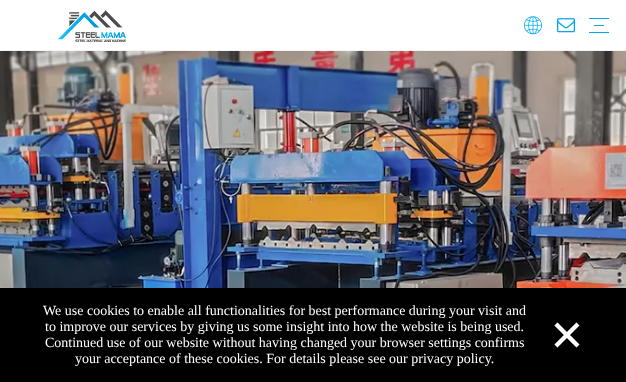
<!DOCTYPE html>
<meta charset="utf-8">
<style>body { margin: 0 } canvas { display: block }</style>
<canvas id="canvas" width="626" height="382"></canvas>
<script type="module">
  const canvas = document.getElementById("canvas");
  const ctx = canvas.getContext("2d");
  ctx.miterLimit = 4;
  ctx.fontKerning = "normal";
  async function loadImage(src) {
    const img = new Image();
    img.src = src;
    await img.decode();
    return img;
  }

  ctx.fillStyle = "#ffffff";
  ctx.fillRect(0, 0, 626, 382);
  ctx.fillStyle = "#f3f3f3";
  ctx.fillRect(0, 50, 626, 1);
  ctx.drawImage(await loadImage("img1.png"), 58, 10, 68, 32);
  ctx.drawImage(await loadImage("img2.png"), 524, 16, 18, 19);
  ctx.drawImage(await loadImage("img3.png"), 557, 18, 18, 15);
  ctx.fillStyle = "#01a9ea";
  ctx.fillRect(589, 18, 20, 1);
  ctx.fillRect(594, 25, 10, 1);
  ctx.fillRect(589, 32, 20, 1);
  ctx.drawImage(await loadImage("img4.png"), 0, 51, 626, 237);
  ctx.fillStyle = "#000000";
  ctx.fillRect(0, 288, 626, 94);
  ctx.font = "14px Liberation Serif";
  ctx.fillStyle = "#ffffff";
  ctx.fillText("We use cookies to enable all functionalities for best performance during your visit and", 43, 315);
  ctx.fillText("to improve our services by giving us some insight into how the website is being used.", 45, 331);
  ctx.fillText("Continued use of our website without having changed your browser settings confirms", 45, 347);
  ctx.fillText("your acceptance of these cookies. For details please see our privacy policy.", 75, 363);
  ctx.font = "bold 60px Liberation Serif";
  ctx.fillText("×", 550, 355);
</script>
